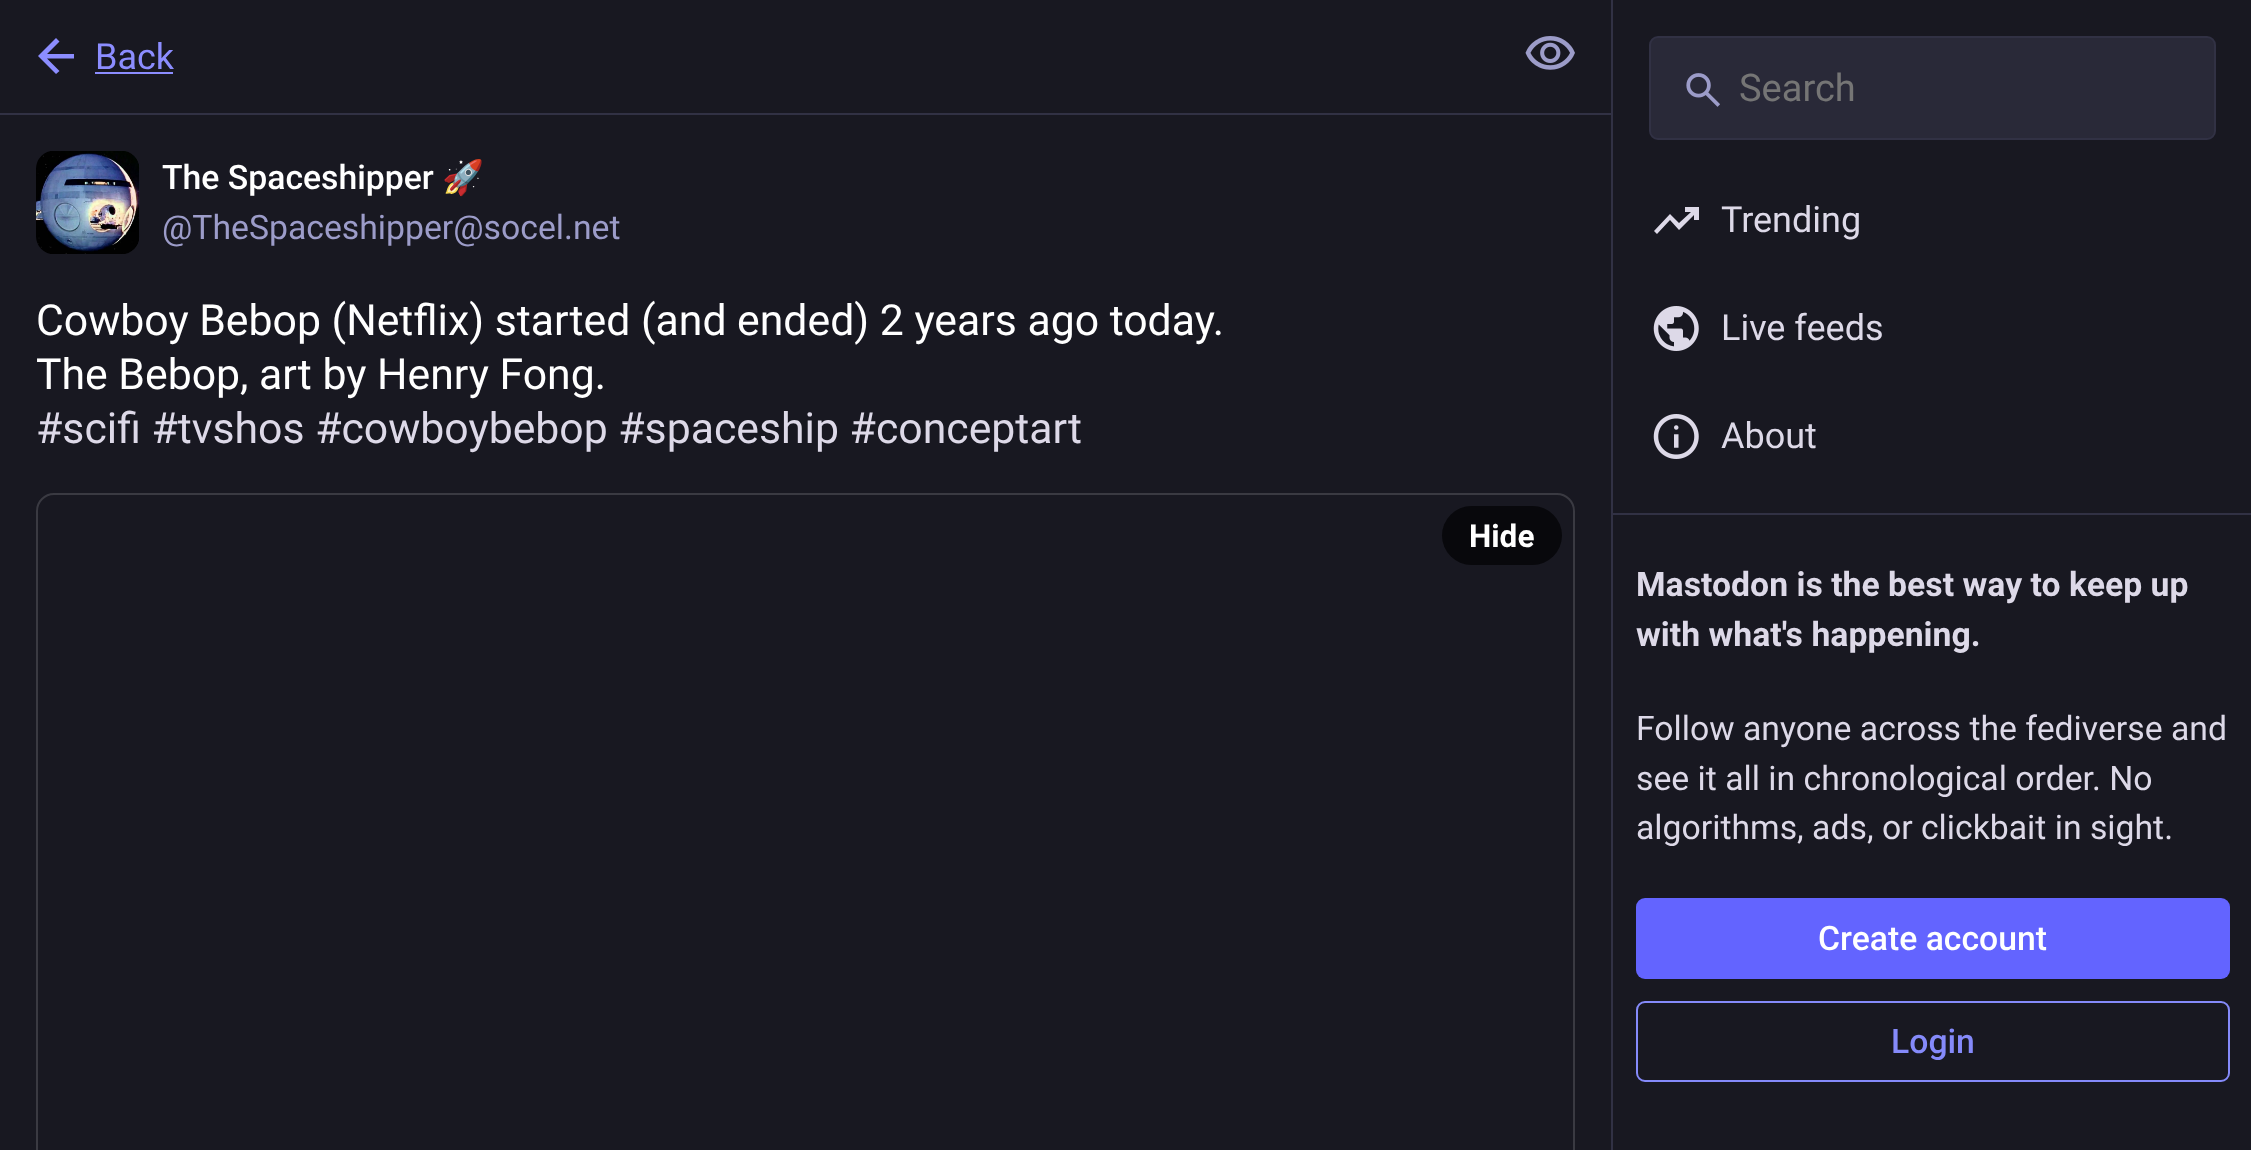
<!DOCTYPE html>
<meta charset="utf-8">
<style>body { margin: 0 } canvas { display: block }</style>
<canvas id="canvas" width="2251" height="1150"></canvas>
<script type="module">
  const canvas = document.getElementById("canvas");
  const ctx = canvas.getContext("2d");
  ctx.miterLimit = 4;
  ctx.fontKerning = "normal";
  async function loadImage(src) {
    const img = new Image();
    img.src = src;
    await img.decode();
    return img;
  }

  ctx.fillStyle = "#181821";
  ctx.fillRect(0, 0, 2251, 1150);
  ctx.fillStyle = "#313144";
  ctx.fillRect(0, 113, 1611, 2);
  ctx.fillStyle = "#8c8dff";
  ctx.beginPath();
  ctx.moveTo(47, 58.5);
  ctx.lineTo(59.5, 71);
  ctx.lineTo(56, 74);
  ctx.lineTo(38, 56);
  ctx.lineTo(56, 38);
  ctx.lineTo(59.5, 41.5);
  ctx.lineTo(47, 54);
  ctx.lineTo(74, 54);
  ctx.lineTo(74, 58.5);
  ctx.closePath();
  ctx.fill();
  ctx.font = "36px Roboto";
  ctx.fillText("Back", 95, 69);
  ctx.fillRect(95, 72, 78, 2);
  ctx.drawImage(await loadImage("img1.png"), 1525, 36, 50, 34);
  ctx.fillStyle = "#20202c";
  ctx.beginPath();
  ctx.roundRect(36, 151, 104, 103, 18);
  ctx.fill();
  ctx.drawImage(await loadImage("img2.png"), 36, 151, 104, 103);
  ctx.font = "500 33.75px Roboto";
  ctx.fillStyle = "#ffffff";
  ctx.fillText("The Spaceshipper", 162, 189);
  ctx.font = "33.75px Noto Color Emoji";
  ctx.fillText("🚀", 442, 189);
  ctx.font = "33.75px Roboto";
  ctx.fillStyle = "#9c9cc9";
  ctx.fillText("@TheSpaceshipper@socel.net", 162, 239);
  ctx.font = "42.75px Roboto";
  ctx.fillStyle = "#ffffff";
  ctx.fillText("Cowboy Bebop (Netflix) started (and ended) 2 years ago today.", 36, 335);
  ctx.fillText("The Bebop, art by Henry Fong.", 36, 389);
  ctx.fillStyle = "#ddd9e8";
  ctx.fillText("#scifi #tvshos #cowboybebop #spaceship #conceptart", 36, 443);
  ctx.beginPath();
  ctx.roundRect(37, 494, 1537, 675, 17);
  ctx.strokeStyle = "#3a3a42";
  ctx.lineWidth = 2;
  ctx.stroke();
  ctx.fillStyle = "#08080c";
  ctx.beginPath();
  ctx.roundRect(1442, 506, 120, 59, 29.5);
  ctx.fill();
  ctx.font = "bold 31.5px Roboto";
  ctx.fillStyle = "#ffffff";
  ctx.fillText("Hide", 1469, 547);
  ctx.fillStyle = "#313144";
  ctx.fillRect(1611, 0, 2, 1150);
  ctx.fillStyle = "#292938";
  ctx.beginPath();
  ctx.roundRect(1650, 37, 565, 102, 8);
  ctx.fill();
  ctx.strokeStyle = "#313144";
  ctx.stroke();
  ctx.drawImage(await loadImage("img3.png"), 1686, 73, 34, 34);
  ctx.font = "38px Roboto";
  ctx.fillStyle = "#757575";
  ctx.fillText("Search", 1739, 101);
  ctx.fillStyle = "#ddd9e8";
  ctx.beginPath();
  ctx.moveTo(1657, 234);
  ctx.lineTo(1654, 231);
  ctx.lineTo(1670, 214);
  ctx.lineTo(1679, 223);
  ctx.lineTo(1691, 212);
  ctx.lineTo(1685, 212);
  ctx.lineTo(1685, 207);
  ctx.lineTo(1699, 207);
  ctx.lineTo(1699, 220);
  ctx.lineTo(1694, 220);
  ctx.lineTo(1694, 215);
  ctx.lineTo(1679, 230);
  ctx.lineTo(1670, 220);
  ctx.closePath();
  ctx.fill();
  ctx.font = "36px Roboto";
  ctx.fillText("Trending", 1721, 232);
  ctx.drawImage(await loadImage("img4.png"), 1653, 306, 46, 45);
  ctx.fillText("Live feeds", 1721, 340);
  ctx.drawImage(await loadImage("img5.png"), 1653, 414, 46, 45);
  ctx.fillText("About", 1721, 448);
  ctx.fillStyle = "#313144";
  ctx.fillRect(1613, 513, 638, 2);
  ctx.font = "bold 33.75px Roboto";
  ctx.fillStyle = "#ddd9e8";
  ctx.fillText("Mastodon is the best way to keep up", 1636, 596);
  ctx.fillText("with what's happening.", 1636, 646);
  ctx.font = "33.75px Roboto";
  ctx.fillText("Follow anyone across the fediverse and", 1636, 740);
  ctx.fillText("see it all in chronological order. No", 1636, 790);
  ctx.fillText("algorithms, ads, or clickbait in sight.", 1636, 839);
  ctx.fillStyle = "#6364ff";
  ctx.beginPath();
  ctx.roundRect(1636, 898, 594, 81, 9);
  ctx.fill();
  ctx.font = "500 33.75px Roboto";
  ctx.fillStyle = "#ffffff";
  ctx.fillText("Create account", 1818, 950);
  ctx.beginPath();
  ctx.roundRect(1637, 1002, 592, 79, 8);
  ctx.strokeStyle = "#858afa";
  ctx.stroke();
  ctx.fillStyle = "#858afa";
  ctx.fillText("Login", 1891, 1053);
</script>
